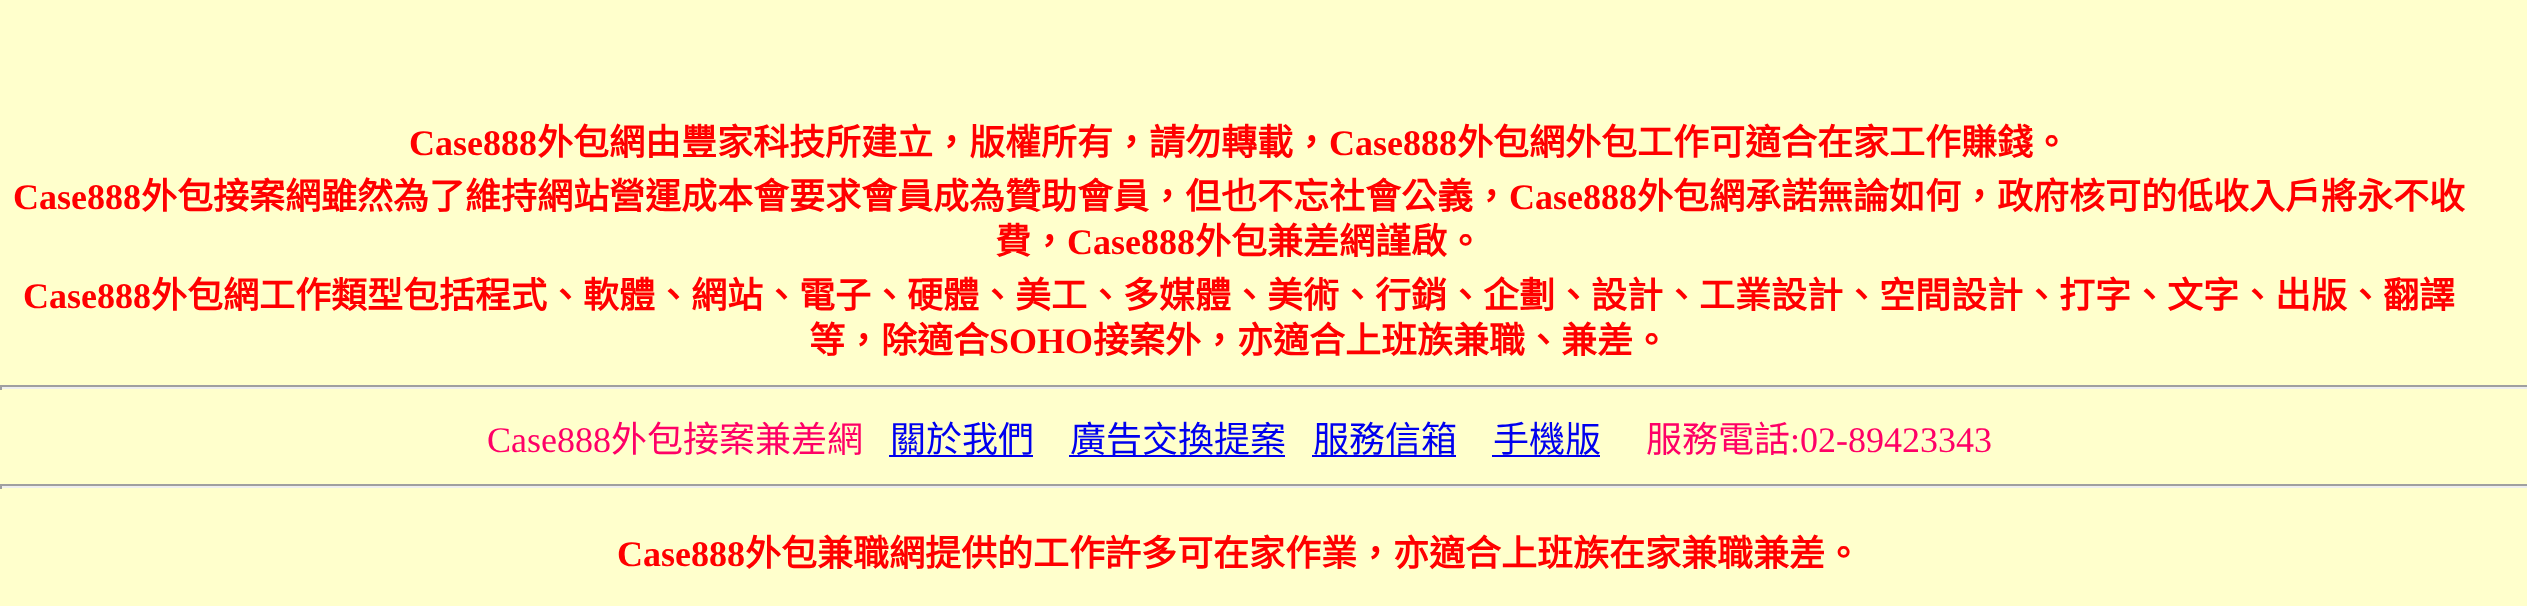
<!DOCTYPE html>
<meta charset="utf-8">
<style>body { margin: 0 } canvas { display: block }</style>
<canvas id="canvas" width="2527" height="606"></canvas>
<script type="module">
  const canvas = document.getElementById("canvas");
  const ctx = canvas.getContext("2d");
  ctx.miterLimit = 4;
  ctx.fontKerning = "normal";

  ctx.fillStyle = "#ffffcc";
  ctx.fillRect(0, 0, 2527, 606);
  ctx.font = "bold 36px Liberation Serif";
  ctx.fillStyle = "#ff0000";
  ctx.fillText("Case888", 409, 155);
  ctx.font = "bold 36px Noto Sans CJK TC";
  ctx.fillText("外包網由豐家科技所建立，版權所有，請勿轉載，", 537, 155);
  ctx.font = "bold 36px Liberation Serif";
  ctx.fillText("Case888", 1329, 155);
  ctx.font = "bold 36px Noto Sans CJK TC";
  ctx.fillText("外包網外包工作可適合在家工作賺錢。", 1457, 155);
  ctx.font = "bold 36px Liberation Serif";
  ctx.fillText("Case888", 13, 209);
  ctx.font = "bold 36px Noto Sans CJK TC";
  ctx.fillText("外包接案網雖然為了維持網站營運成本會要求會員成為贊助會員，但也不忘社會公義，", 141, 209);
  ctx.font = "bold 36px Liberation Serif";
  ctx.fillText("Case888", 1509, 209);
  ctx.font = "bold 36px Noto Sans CJK TC";
  ctx.fillText("外包網承諾無論如何，政府核可的低收入戶將永不收", 1637, 209);
  ctx.fillText("費，", 995, 254);
  ctx.font = "bold 36px Liberation Serif";
  ctx.fillText("Case888", 1067, 254);
  ctx.font = "bold 36px Noto Sans CJK TC";
  ctx.fillText("外包兼差網謹啟。", 1195, 254);
  ctx.font = "bold 36px Liberation Serif";
  ctx.fillText("Case888", 23, 308);
  ctx.font = "bold 36px Noto Sans CJK TC";
  ctx.fillText("外包網工作類型包括程式、軟體、網站、電子、硬體、美工、多媒體、美術、行銷、企劃、設計、工業設計、空間設計、打字、文字、出版、翻譯", 151, 308);
  ctx.fillText("等，除適合", 809, 353);
  ctx.font = "bold 36px Liberation Serif";
  ctx.fillText("SOHO", 989, 353);
  ctx.font = "bold 36px Noto Sans CJK TC";
  ctx.fillText("接案外，亦適合上班族兼職、兼差。", 1093, 353);
  ctx.fillStyle = "#9f9f9f";
  ctx.fillRect(0, 385, 2527, 2);
  ctx.fillStyle = "#eeeeee";
  ctx.fillRect(0, 387, 2527, 2);
  ctx.fillStyle = "#9f9f9f";
  ctx.fillRect(0, 385, 2, 5);
  ctx.font = "36px Liberation Serif";
  ctx.fillStyle = "#ff0066";
  ctx.fillText("Case888", 487, 452);
  ctx.font = "36px Noto Sans CJK TC";
  ctx.fillText("外包接案兼差網", 611, 452);
  ctx.fillStyle = "#0000ee";
  ctx.fillText("關於我們", 890, 452);
  ctx.fillRect(889, 455, 144, 2);
  ctx.fillRect(1069, 455, 216, 2);
  ctx.fillText("廣告交換提案", 1070, 452);
  ctx.fillText("服務信箱", 1313, 452);
  ctx.fillRect(1312, 455, 144, 2);
  ctx.fillRect(1492, 455, 108, 2);
  ctx.fillText("手機版", 1493, 452);
  ctx.fillStyle = "#ff0066";
  ctx.fillText("服務電話", 1646, 452);
  ctx.font = "36px Liberation Serif";
  ctx.fillText(":02-89423343", 1790, 452);
  ctx.fillStyle = "#9f9f9f";
  ctx.fillRect(0, 484, 2527, 2);
  ctx.fillStyle = "#eeeeee";
  ctx.fillRect(0, 486, 2527, 2);
  ctx.fillStyle = "#9f9f9f";
  ctx.fillRect(0, 484, 2, 5);
  ctx.font = "bold 36px Liberation Serif";
  ctx.fillStyle = "#ff0000";
  ctx.fillText("Case888", 617, 566);
  ctx.font = "bold 36px Noto Sans CJK TC";
  ctx.fillText("外包兼職網提供的工作許多可在家作業，亦適合上班族在家兼職兼差。", 745, 566);
</script>
